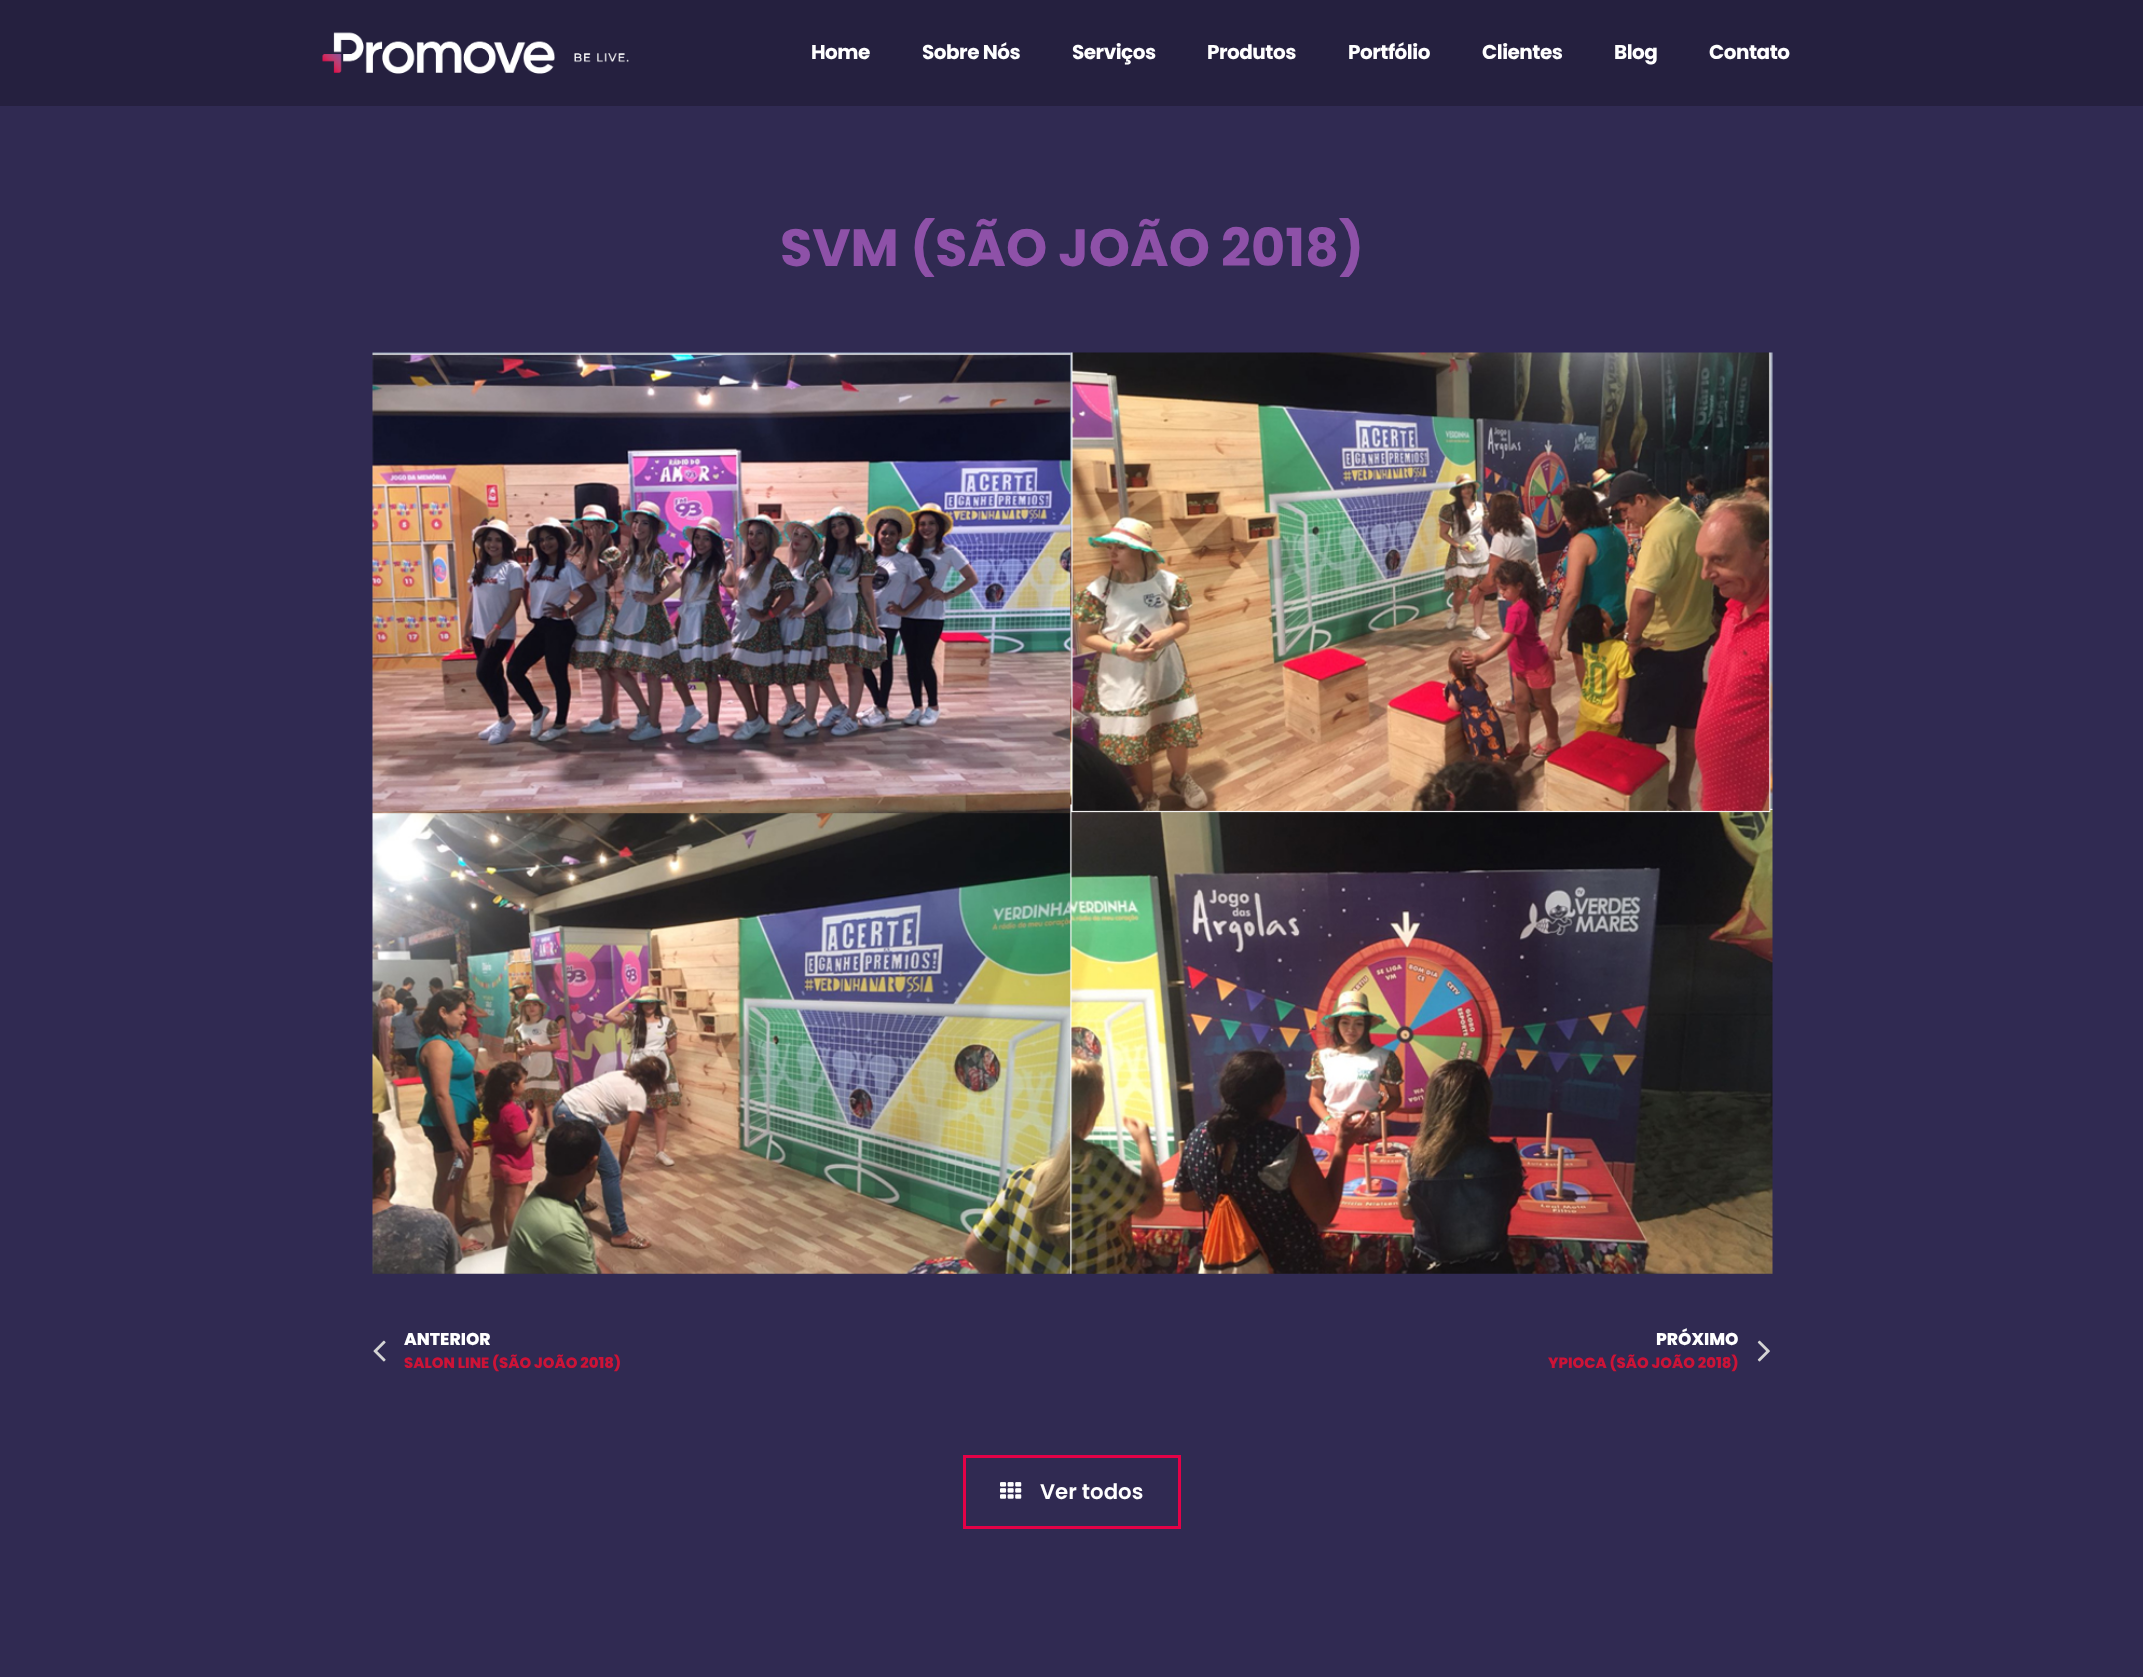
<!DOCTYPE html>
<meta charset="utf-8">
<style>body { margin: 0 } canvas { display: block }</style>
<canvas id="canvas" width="2143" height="1677"></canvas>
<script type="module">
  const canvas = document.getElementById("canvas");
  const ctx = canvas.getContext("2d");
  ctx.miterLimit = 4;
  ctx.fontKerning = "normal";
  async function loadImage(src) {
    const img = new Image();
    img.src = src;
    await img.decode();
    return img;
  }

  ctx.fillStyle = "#302a52";
  ctx.fillRect(0, 0, 2143, 1677);
  ctx.fillStyle = "#25203f";
  ctx.fillRect(0, 0, 2143, 106);
  ctx.drawImage(await loadImage("img1.png"), 322, 32, 307, 42);
  ctx.letterSpacing = "-0.5px";
  ctx.font = "bold 20px Poppins";
  ctx.fillStyle = "#ffffff";
  ctx.fillText("Home", 811, 59);
  ctx.fillText("Sobre Nós", 922, 59);
  ctx.fillText("Serviços", 1072, 59);
  ctx.fillText("Produtos", 1207, 59);
  ctx.fillText("Portfólio", 1348, 59);
  ctx.fillText("Clientes", 1482, 59);
  ctx.fillText("Blog", 1614, 59);
  ctx.fillText("Contato", 1709, 59);
  ctx.letterSpacing = "0px";
  ctx.font = "bold 52.5px Poppins";
  ctx.fillStyle = "#8e51a8";
  ctx.fillText("SVM (SÃO JOÃO 2018)", 780, 266);
  ctx.drawImage(await loadImage("img2.png"), 372, 352, 1401, 922);
  ctx.drawImage(await loadImage("img3.png"), 373, 1340, 13, 22);
  ctx.font = "800 17px Poppins";
  ctx.fillStyle = "#ffffff";
  ctx.fillText("ANTERIOR", 404, 1345);
  ctx.font = "800 14.9px Poppins";
  ctx.fillStyle = "#cc1337";
  ctx.fillText("SALON LINE (SÃO JOÃO 2018)", 404, 1368);
  ctx.font = "800 17px Poppins";
  ctx.fillStyle = "#ffffff";
  ctx.fillText("PRÓXIMO", 1656, 1345);
  ctx.font = "800 14.9px Poppins";
  ctx.fillStyle = "#cc1337";
  ctx.fillText("YPIOCA (SÃO JOÃO 2018)", 1548, 1368);
  ctx.drawImage(await loadImage("img4.png"), 1757, 1340, 13, 22);
  ctx.strokeStyle = "#e40147";
  ctx.lineWidth = 3;
  ctx.strokeRect(964.5, 1456.5, 215, 71);
  ctx.drawImage(await loadImage("img5.png"), 1000, 1482, 22, 17);
  ctx.font = "600 21.25px Poppins";
  ctx.fillStyle = "#ffffff";
  ctx.fillText("Ver todos", 1040, 1499);
</script>
